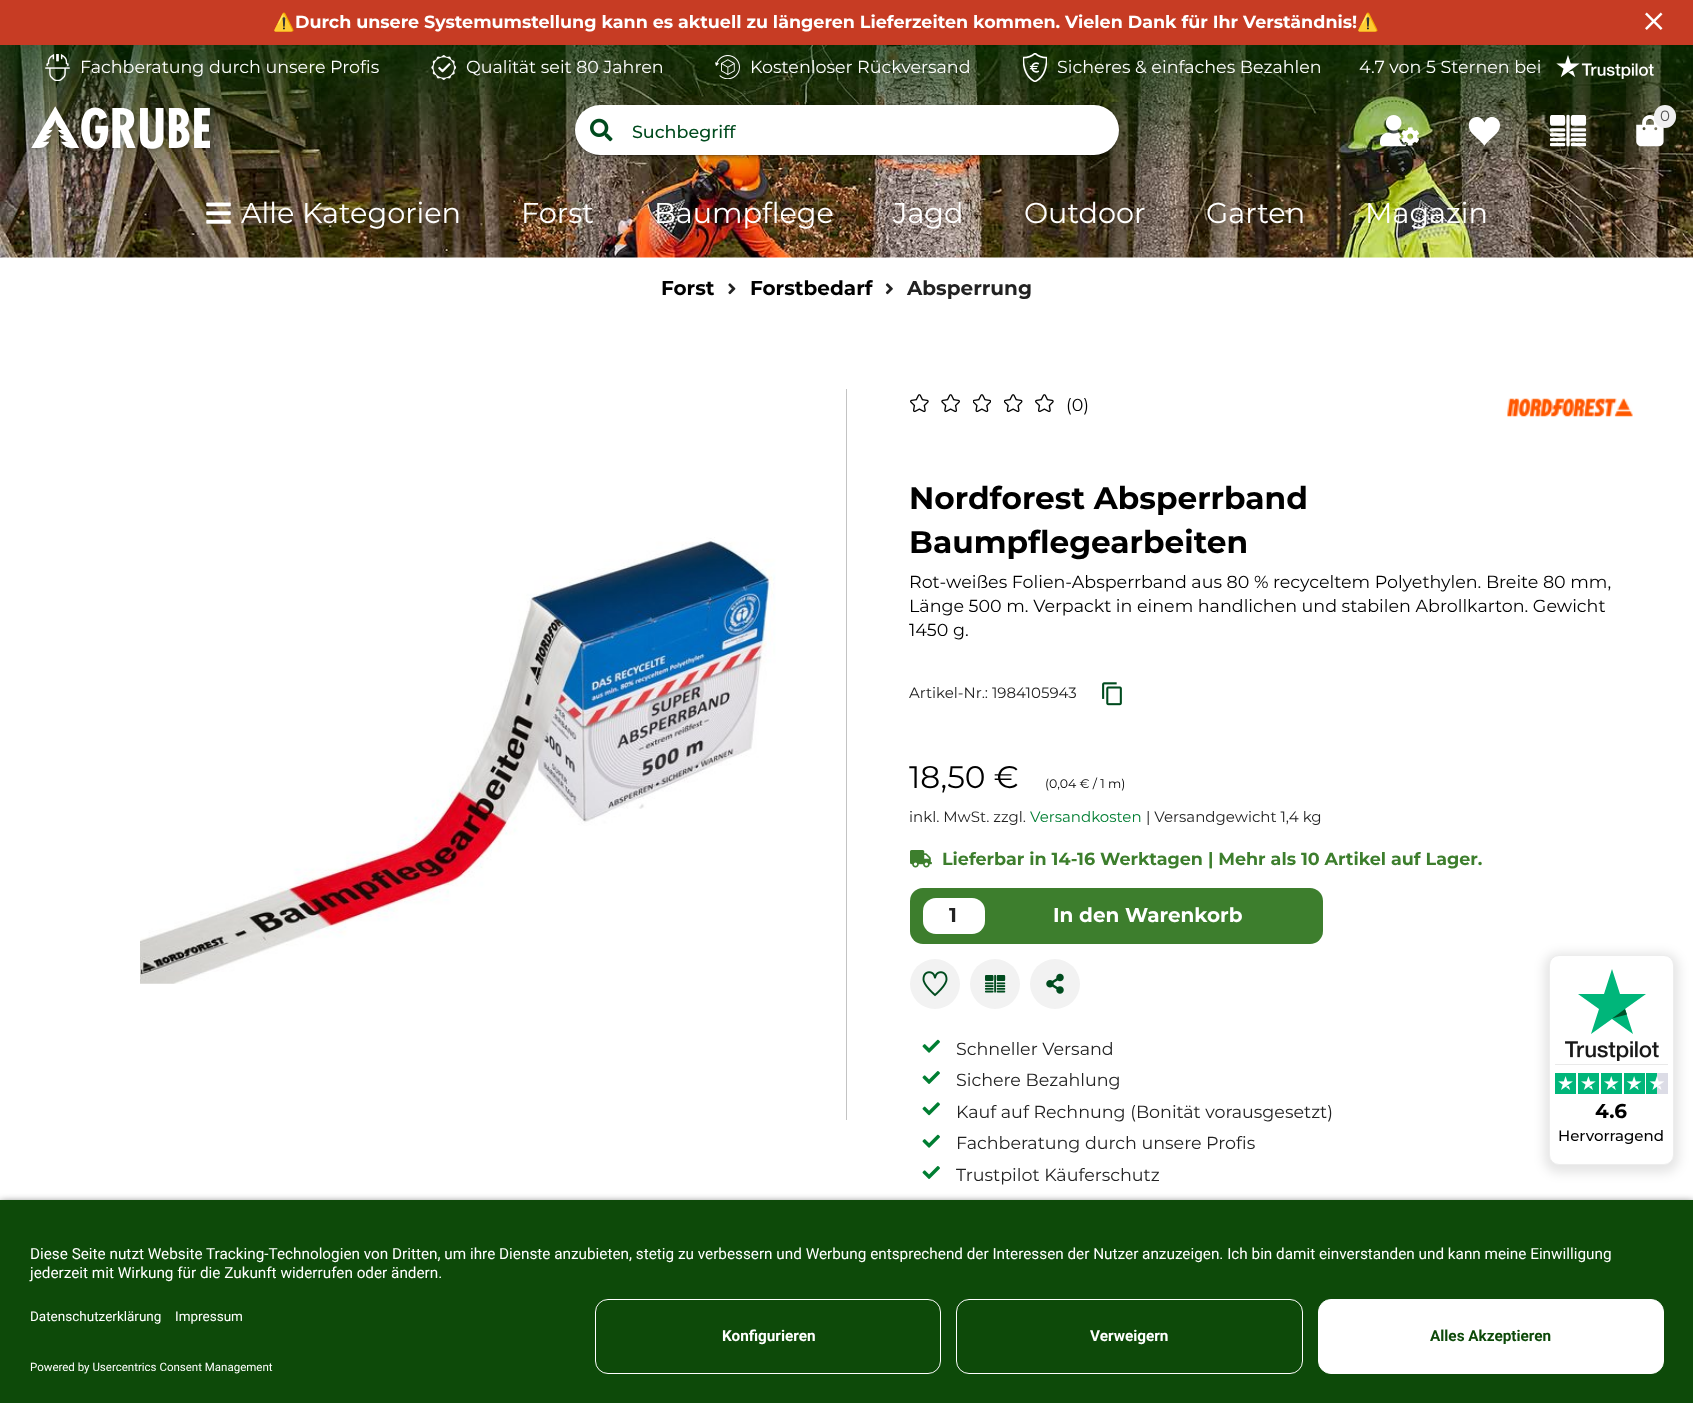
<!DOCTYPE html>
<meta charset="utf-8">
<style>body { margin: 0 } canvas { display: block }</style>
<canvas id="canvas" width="1693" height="1403"></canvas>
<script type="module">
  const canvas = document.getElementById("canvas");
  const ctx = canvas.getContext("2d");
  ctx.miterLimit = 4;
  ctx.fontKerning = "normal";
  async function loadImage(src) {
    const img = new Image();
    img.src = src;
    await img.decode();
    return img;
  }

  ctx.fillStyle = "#ffffff";
  ctx.fillRect(0, 0, 1693, 1403);
  ctx.fillStyle = "#c73c24";
  ctx.fillRect(0, 0, 1693, 45);
  ctx.font = "bold 17.5px Noto Color Emoji";
  ctx.fillStyle = "#ffffff";
  ctx.fillText("⚠️", 273, 28);
  ctx.font = "bold 17.5px Montserrat";
  ctx.fillText("Durch unsere Systemumstellung kann es aktuell zu längeren Lieferzeiten kommen. Vielen Dank für Ihr Verständnis!", 295, 28);
  ctx.font = "bold 17.5px Noto Color Emoji";
  ctx.fillText("⚠️", 1357, 28);
  ctx.drawImage(await loadImage("img1.png"), 1645, 12, 18, 18);
  ctx.drawImage(await loadImage("img2.png"), 0, 45, 1693, 213);
  ctx.drawImage(await loadImage("img3.png"), 45, 54, 25, 27);
  ctx.font = "17.5px Montserrat";
  ctx.fillText("Fachberatung durch unsere Profis", 80, 73);
  ctx.drawImage(await loadImage("img4.png"), 431, 55, 25, 25);
  ctx.fillText("Qualität seit 80 Jahren", 466, 73);
  ctx.drawImage(await loadImage("img5.png"), 715, 55, 25, 24);
  ctx.fillText("Kostenloser Rückversand", 750, 73);
  ctx.drawImage(await loadImage("img6.png"), 1023, 53, 24, 29);
  ctx.fillText("Sicheres & einfaches Bezahlen", 1057, 73);
  ctx.fillText("4.7 von 5 Sternen bei", 1359, 73);
  ctx.drawImage(await loadImage("img7.png"), 1556, 55, 98, 24);
  ctx.drawImage(await loadImage("img8.png"), 31, 106, 181, 45);
  ctx.drawImage(await loadImage("img9.png"), 1380, 115, 39, 32);
  ctx.drawImage(await loadImage("img10.png"), 1468, 116, 32, 30);
  ctx.drawImage(await loadImage("img11.png"), 1550, 114, 37, 33);
  ctx.drawImage(await loadImage("img12.png"), 1636, 115, 28, 32);
  ctx.fillStyle = "#f0f0f0";
  ctx.beginPath();
  ctx.roundRect(1654, 105, 22, 23, 11);
  ctx.fill();
  ctx.font = "15px Montserrat";
  ctx.fillStyle = "#555555";
  ctx.fillText("0", 1660, 121);
  ctx.fillStyle = "rgba(0, 0, 0, 0.12)";
  ctx.filter = "blur(3px)";
  ctx.beginPath();
  ctx.roundRect(575, 106, 544, 50, 25);
  ctx.fill();
  ctx.filter = "none";
  ctx.fillStyle = "rgba(0, 0, 0, 0.14)";
  ctx.filter = "blur(1px)";
  ctx.beginPath();
  ctx.roundRect(575, 108, 544, 50, 25);
  ctx.fill();
  ctx.filter = "none";
  ctx.fillStyle = "rgba(0, 0, 0, 0.2)";
  ctx.filter = "blur(0.5px)";
  ctx.beginPath();
  ctx.roundRect(578, 111, 538, 45, 22.5);
  ctx.fill();
  ctx.filter = "none";
  ctx.fillStyle = "#ffffff";
  ctx.beginPath();
  ctx.roundRect(575, 105, 544, 50, 25);
  ctx.fill();
  ctx.drawImage(await loadImage("img13.png"), 590, 118, 23, 24);
  ctx.font = "500 17.5px Montserrat";
  ctx.fillStyle = "#004b1e";
  ctx.fillText("Suchbegriff", 632, 138);
  ctx.drawImage(await loadImage("img14.png"), 206, 202, 25, 22);
  ctx.font = "28.75px Montserrat";
  ctx.fillStyle = "#ffffff";
  ctx.fillText("Alle Kategorien", 241, 223);
  ctx.fillText("Forst", 521, 223);
  ctx.fillText("Baumpflege", 654, 223);
  ctx.fillText("Jagd", 893, 223);
  ctx.fillText("Outdoor", 1024, 223);
  ctx.fillText("Garten", 1206, 223);
  ctx.fillText("Magazin", 1365, 223);
  ctx.font = "bold 20px Montserrat";
  ctx.fillStyle = "#000000";
  ctx.fillText("Forst", 661, 295);
  ctx.drawImage(await loadImage("img15.png"), 728, 283, 8, 12);
  ctx.fillText("Forstbedarf", 750, 295);
  ctx.drawImage(await loadImage("img16.png"), 885, 283, 8, 12);
  ctx.fillStyle = "#222222";
  ctx.fillText("Absperrung", 907, 295);
  ctx.drawImage(await loadImage("img17.png"), 910, 394, 19, 19);
  ctx.drawImage(await loadImage("img18.png"), 941, 394, 19, 19);
  ctx.drawImage(await loadImage("img19.png"), 973, 394, 18, 19);
  ctx.drawImage(await loadImage("img20.png"), 1004, 394, 19, 19);
  ctx.drawImage(await loadImage("img17.png"), 1035, 394, 19, 19);
  ctx.font = "17.5px Montserrat";
  ctx.fillStyle = "#000000";
  ctx.fillText("(0)", 1066, 411);
  ctx.drawImage(await loadImage("img21.png"), 1507, 398, 126, 19);
  ctx.fillStyle = "#c3c3c3";
  ctx.fillRect(846, 389, 1, 731);
  ctx.drawImage(await loadImage("img22.png"), 140, 537, 636, 447);
  ctx.font = "bold 31.25px Montserrat";
  ctx.fillStyle = "#000000";
  ctx.fillText("Nordforest Absperrband", 909, 509);
  ctx.fillText("Baumpflegearbeiten", 909, 553);
  ctx.font = "17.5px Montserrat";
  ctx.fillText("Rot-weißes Folien-Absperrband aus 80 % recyceltem Polyethylen. Breite 80 mm,", 909, 588);
  ctx.fillText("Länge 500 m. Verpackt in einem handlichen und stabilen Abrollkarton. Gewicht", 909, 612);
  ctx.fillText("1450 g.", 909, 636);
  ctx.font = "15px Montserrat";
  ctx.fillStyle = "#222222";
  ctx.fillText("Artikel-Nr.: 1984105943", 909, 698);
  ctx.drawImage(await loadImage("img23.png"), 1102, 682, 20, 24);
  ctx.font = "31.25px Montserrat";
  ctx.fillStyle = "#000000";
  ctx.fillText("18,50 €", 909, 788);
  ctx.font = "12.5px Montserrat";
  ctx.fillText("(0,04 € / 1 m)", 1045, 788);
  ctx.font = "15px Montserrat";
  ctx.fillStyle = "#222222";
  ctx.fillText("inkl. MwSt. zzgl.", 909, 822);
  ctx.fillStyle = "#007e32";
  ctx.fillText("Versandkosten", 1030, 822);
  ctx.fillStyle = "#222222";
  ctx.fillText("| Versandgewicht 1,4 kg", 1146, 822);
  ctx.drawImage(await loadImage("img24.png"), 910, 850, 22, 18);
  ctx.font = "bold 17.5px Montserrat";
  ctx.fillStyle = "#3d7e2d";
  ctx.fillText("Lieferbar in 14-16 Werktagen | Mehr als 10 Artikel auf Lager.", 942, 865);
  ctx.beginPath();
  ctx.roundRect(910, 888, 413, 56, 13);
  ctx.fill();
  ctx.fillStyle = "#ffffff";
  ctx.beginPath();
  ctx.roundRect(923, 898, 62, 36, 13);
  ctx.fill();
  ctx.font = "bold 20px Montserrat";
  ctx.fillStyle = "#222222";
  ctx.fillText("1", 949, 922);
  ctx.fillStyle = "#ffffff";
  ctx.fillText("In den Warenkorb", 1053, 922);
  ctx.fillStyle = "#f2f2f2";
  ctx.beginPath();
  ctx.arc(935, 984, 25, 0, Math.PI * 2);
  ctx.fill();
  ctx.drawImage(await loadImage("img25.png"), 922, 971, 26, 26);
  ctx.beginPath();
  ctx.arc(995, 984, 25, 0, Math.PI * 2);
  ctx.fill();
  ctx.drawImage(await loadImage("img26.png"), 985, 974, 21, 19);
  ctx.beginPath();
  ctx.arc(1055, 984, 25, 0, Math.PI * 2);
  ctx.fill();
  ctx.drawImage(await loadImage("img27.png"), 1046, 973, 18, 21);
  ctx.drawImage(await loadImage("img28.png"), 922, 1039, 18, 14);
  ctx.font = "17.5px Montserrat";
  ctx.fillStyle = "#222222";
  ctx.fillText("Schneller Versand", 956, 1055);
  ctx.drawImage(await loadImage("img29.png"), 922, 1071, 18, 13);
  ctx.fillText("Sichere Bezahlung", 956, 1086);
  ctx.drawImage(await loadImage("img30.png"), 922, 1102, 18, 14);
  ctx.fillText("Kauf auf Rechnung (Bonität vorausgesetzt)", 956, 1118);
  ctx.drawImage(await loadImage("img28.png"), 922, 1134, 18, 14);
  ctx.fillText("Fachberatung durch unsere Profis", 956, 1149);
  ctx.drawImage(await loadImage("img29.png"), 922, 1166, 18, 13);
  ctx.fillText("Trustpilot Käuferschutz", 956, 1181);
  ctx.fillStyle = "rgba(0, 0, 0, 0.1)";
  ctx.filter = "blur(5.5px)";
  ctx.beginPath();
  ctx.roundRect(1544, 953, 135, 220, 15);
  ctx.fill();
  ctx.filter = "none";
  ctx.fillStyle = "#ffffff";
  ctx.beginPath();
  ctx.roundRect(1549.5, 955.5, 124, 209, 9.5);
  ctx.fill();
  ctx.strokeStyle = "#ededed";
  ctx.stroke();
  ctx.fillStyle = "#00b67a";
  ctx.beginPath();
  ctx.moveTo(1625, 1009);
  ctx.lineTo(1633, 1034);
  ctx.lineTo(1612, 1019);
  ctx.lineTo(1591, 1034);
  ctx.lineTo(1599, 1009);
  ctx.lineTo(1578, 994);
  ctx.lineTo(1604, 994);
  ctx.lineTo(1612, 969);
  ctx.lineTo(1620, 994);
  ctx.lineTo(1646, 994);
  ctx.closePath();
  ctx.fill();
  ctx.fillStyle = "#005128";
  ctx.beginPath();
  ctx.moveTo(1612, 1018.5);
  ctx.lineTo(1625, 1009);
  ctx.lineTo(1627, 1014.5);
  ctx.closePath();
  ctx.fill();
  ctx.fillStyle = "#e9e9e9";
  ctx.fillRect(1555, 1064, 113, 1);
  ctx.drawImage(await loadImage("img31.png"), 1565, 1041, 94, 20);
  ctx.drawImage(await loadImage("img32.png"), 1555, 1073, 113, 21);
  ctx.font = "bold 20px Montserrat";
  ctx.fillStyle = "#000000";
  ctx.fillText("4.6", 1595, 1118);
  ctx.font = "500 15px Montserrat";
  ctx.fillText("Hervorragend", 1558, 1141);
  ctx.fillStyle = "rgba(0, 0, 0, 0.8)";
  ctx.filter = "blur(4.5px)";
  ctx.beginPath();
  ctx.roundRect(0, 1203, 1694, 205, 1);
  ctx.fill();
  ctx.filter = "none";
  ctx.fillStyle = "#0d4a09";
  ctx.fillRect(0, 1200, 1693, 203);
  ctx.font = "15.31px Roboto";
  ctx.fillStyle = "#ffffff";
  ctx.fillText("Diese Seite nutzt Website Tracking-Technologien von Dritten, um ihre Dienste anzubieten, stetig zu verbessern und Werbung entsprechend der Interessen der Nutzer anzuzeigen. Ich bin damit einverstanden und kann meine Einwilligung", 30, 1259);
  ctx.fillText("jederzeit mit Wirkung für die Zukunft widerrufen oder ändern.", 30, 1278);
  ctx.font = "13.5px Roboto";
  ctx.fillText("Datenschutzerklärung", 30, 1321);
  ctx.fillText("Impressum", 175, 1321);
  ctx.font = "11.5px Roboto";
  ctx.fillText("Powered by Usercentrics Consent Management", 30, 1371);
  ctx.beginPath();
  ctx.roundRect(595.5, 1299.5, 345, 74, 12.5);
  ctx.strokeStyle = "#ffffff";
  ctx.stroke();
  ctx.font = "bold 15.31px Roboto";
  ctx.fillText("Konfigurieren", 722, 1341);
  ctx.beginPath();
  ctx.roundRect(956.5, 1299.5, 346, 74, 12.5);
  ctx.stroke();
  ctx.fillText("Verweigern", 1090, 1341);
  ctx.beginPath();
  ctx.roundRect(1318.5, 1299.5, 345, 74, 12.5);
  ctx.fill();
  ctx.stroke();
  ctx.fillStyle = "#0d4a09";
  ctx.fillText("Alles Akzeptieren", 1430, 1341);
</script>
